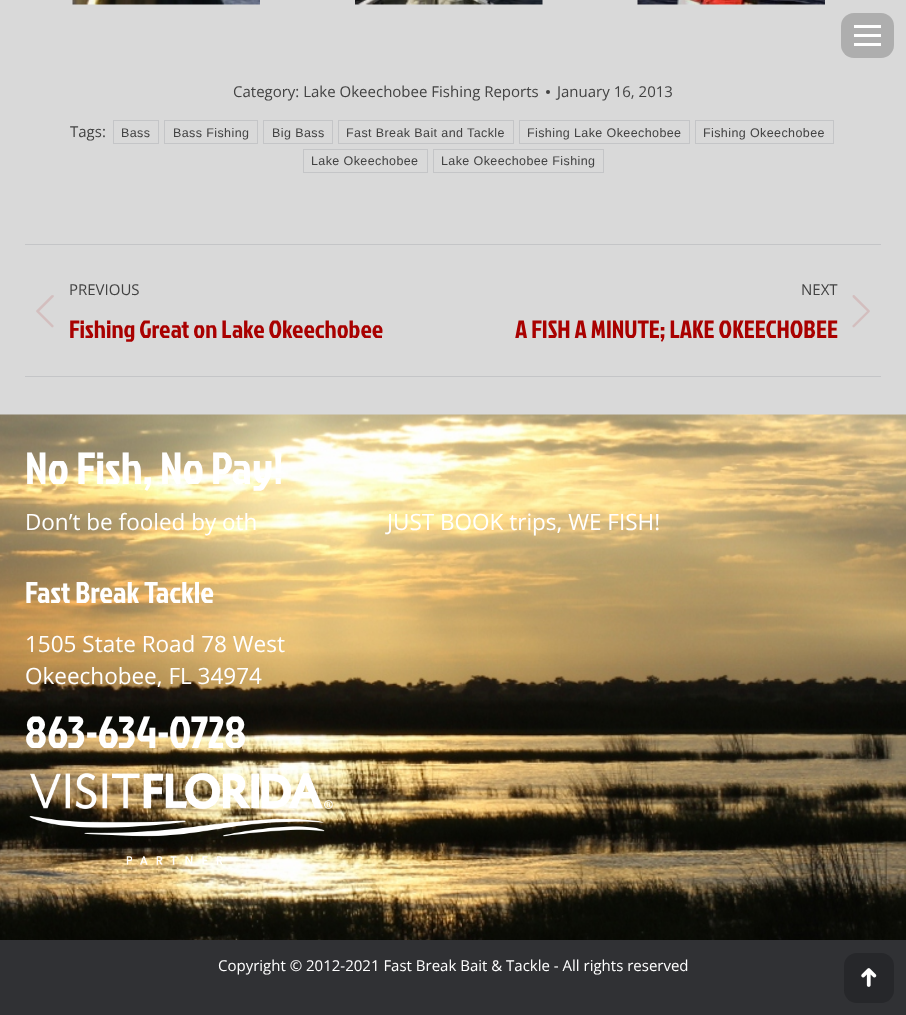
<!DOCTYPE html>
<meta charset="utf-8">
<style>body { margin: 0 } canvas { display: block }</style>
<canvas id="canvas" width="906" height="1015"></canvas>
<script type="module">
  const canvas = document.getElementById("canvas");
  const ctx = canvas.getContext("2d");
  ctx.miterLimit = 4;
  ctx.fontKerning = "normal";
  async function loadImage(src) {
    const img = new Image();
    img.src = src;
    await img.decode();
    return img;
  }

  ctx.fillStyle = "#d9d9d9";
  ctx.fillRect(0, 0, 906, 1015);
  ctx.fillStyle = "#aeaeae";
  ctx.beginPath();
  ctx.roundRect(841, 13, 53, 45, 13);
  ctx.fill();
  ctx.fillStyle = "#ffffff";
  ctx.fillRect(854, 25, 27, 3);
  ctx.fillRect(854, 34, 27, 3);
  ctx.fillRect(854, 43, 27, 3);
  ctx.drawImage(await loadImage("img1.png"), 72, 0, 188, 5);
  ctx.drawImage(await loadImage("img2.png"), 355, 0, 188, 5);
  ctx.drawImage(await loadImage("img3.png"), 637, 0, 188, 5);
  ctx.font = "15px Open Sans";
  ctx.fillStyle = "#424242";
  ctx.fillText("Category: Lake Okeechobee Fishing Reports", 233, 97);
  ctx.beginPath();
  ctx.arc(548, 92, 2, 0, Math.PI * 2);
  ctx.fill();
  ctx.fillText("January 16, 2013", 557, 97);
  ctx.fillText("Tags:", 70, 137);
  ctx.strokeStyle = "#c4c5c7";
  ctx.strokeRect(113.5, 120.5, 45, 23);
  ctx.letterSpacing = "0.4px";
  ctx.font = "12.5px Liberation Sans";
  ctx.fillText("Bass", 121, 137);
  ctx.strokeRect(164.5, 120.5, 93, 23);
  ctx.fillText("Bass Fishing", 173, 137);
  ctx.strokeRect(263.5, 120.5, 69, 23);
  ctx.fillText("Big Bass", 272, 137);
  ctx.strokeRect(338.5, 120.5, 175, 23);
  ctx.fillText("Fast Break Bait and Tackle", 346, 137);
  ctx.strokeRect(519.5, 120.5, 170, 23);
  ctx.fillText("Fishing Lake Okeechobee", 527, 137);
  ctx.strokeRect(695.5, 120.5, 138, 23);
  ctx.fillText("Fishing Okeechobee", 703, 137);
  ctx.strokeRect(303.5, 149.5, 124, 23);
  ctx.fillText("Lake Okeechobee", 311, 165);
  ctx.strokeRect(433.5, 149.5, 170, 23);
  ctx.fillText("Lake Okeechobee Fishing", 441, 165);
  ctx.fillStyle = "#c4c5c7";
  ctx.fillRect(25, 244, 856, 1);
  ctx.fillRect(25, 376, 856, 1);
  ctx.letterSpacing = "0px";
  ctx.font = "15px Open Sans";
  ctx.fillStyle = "#424242";
  ctx.fillText("PREVIOUS", 69, 295);
  ctx.drawImage(await loadImage("img4.png"), 36, 295, 18, 33);
  ctx.font = "25px Jockey One";
  ctx.fillStyle = "#a90100";
  ctx.fillText("Fishing Great on Lake Okeechobee", 69, 338);
  ctx.font = "15px Open Sans";
  ctx.fillStyle = "#424242";
  ctx.fillText("NEXT", 801, 295);
  ctx.drawImage(await loadImage("img5.png"), 852, 295, 18, 33);
  ctx.font = "25px Jockey One";
  ctx.fillStyle = "#a90100";
  ctx.fillText("A FISH A MINUTE; LAKE OKEECHOBEE", 515, 338);
  ctx.drawImage(await loadImage("img6.png"), 0, 414, 906, 526);
  ctx.font = "45px Jockey One";
  ctx.fillStyle = "#ffffff";
  ctx.fillText("No Fish, No Pay!", 25, 484);
  ctx.font = "22.5px Open Sans";
  ctx.fillText("Don’t be fooled by oth", 25, 530);
  ctx.fillText("JUST BOOK trips, WE FISH!", 387, 530);
  ctx.font = "30px Jockey One";
  ctx.fillText("Fast Break Tackle", 25, 603);
  ctx.font = "22.5px Open Sans";
  ctx.fillText("1505 State Road 78 West", 25, 652);
  ctx.fillText("Okeechobee, FL 34974", 25, 684);
  ctx.font = "45px Jockey One";
  ctx.fillText("863-634-0728", 25, 748);
  ctx.drawImage(await loadImage("img7.png"), 29, 772, 304, 93);
  ctx.fillStyle = "#303134";
  ctx.fillRect(0, 940, 906, 75);
  ctx.font = "15px Open Sans";
  ctx.fillStyle = "#ffffff";
  ctx.fillText("Copyright © 2012-2021 Fast Break Bait & Tackle - All rights reserved", 218, 971);
  ctx.fillStyle = "#26272a";
  ctx.beginPath();
  ctx.roundRect(844, 953, 50, 50, 13);
  ctx.fill();
  ctx.drawImage(await loadImage("img8.png"), 861, 968, 16, 19);
</script>
